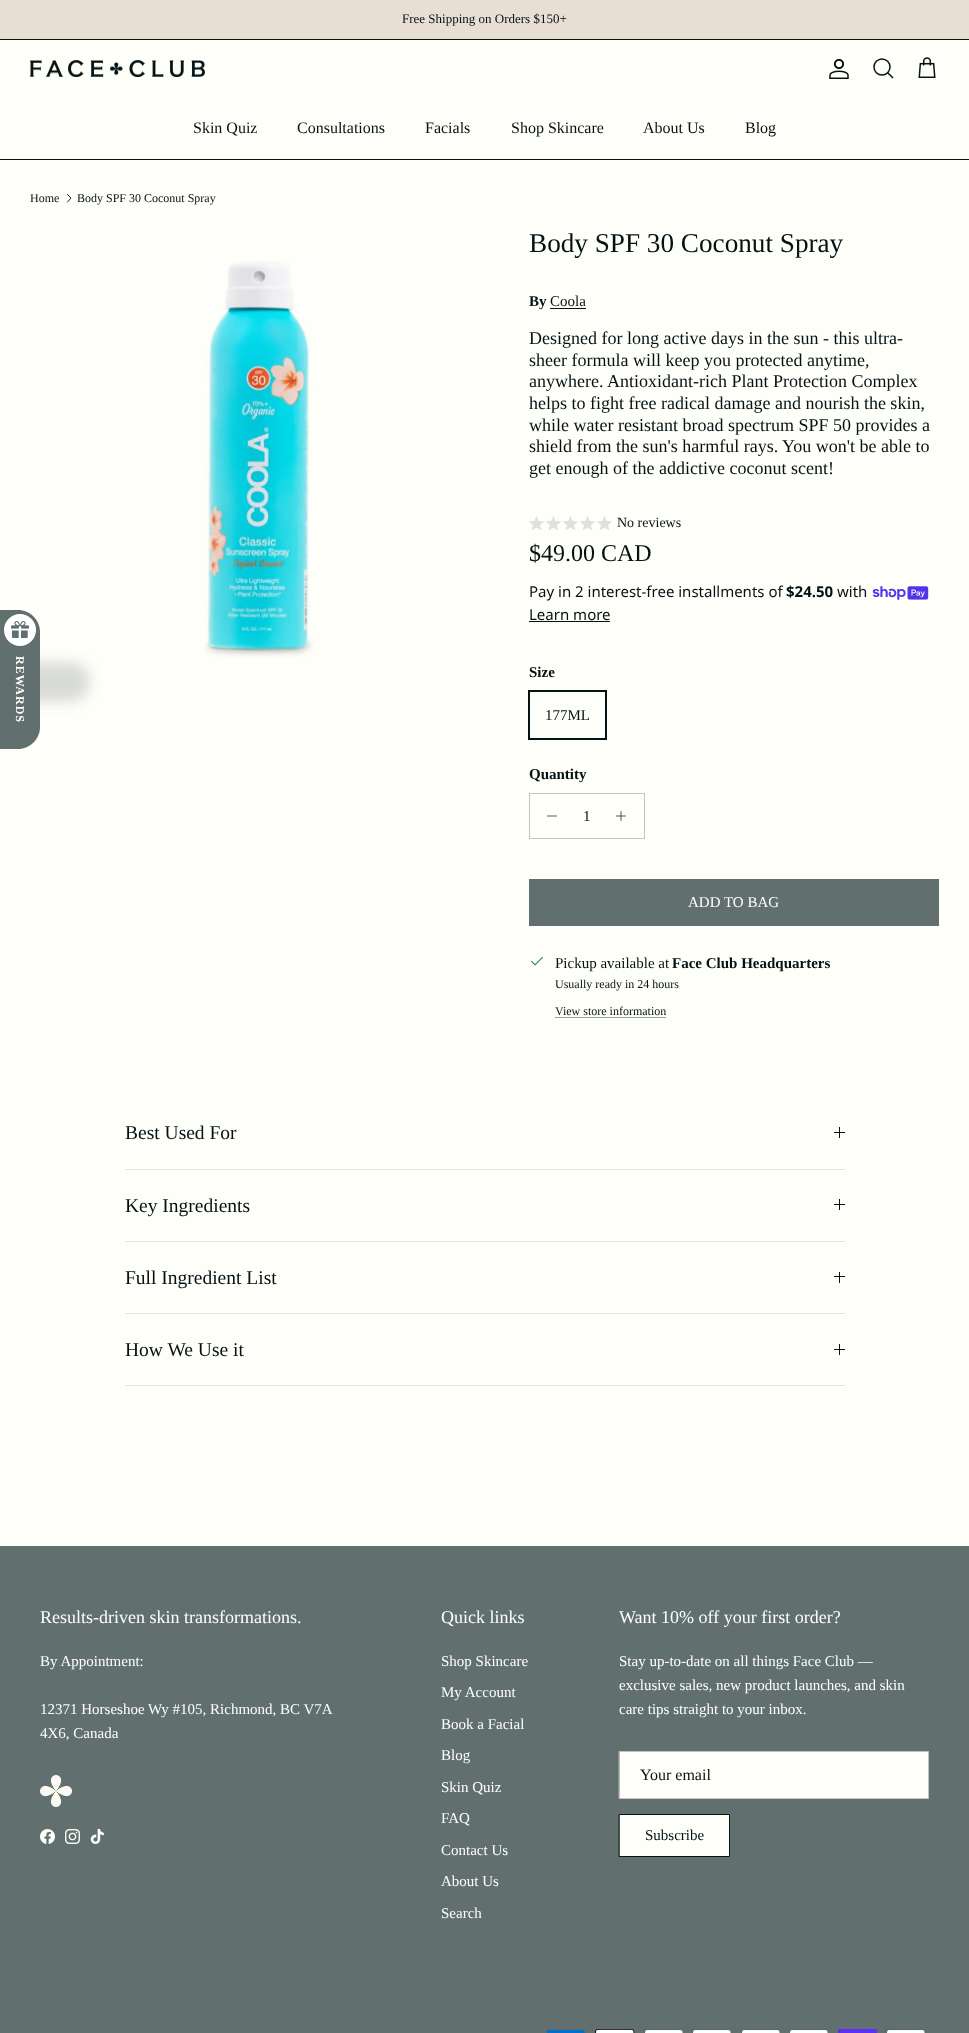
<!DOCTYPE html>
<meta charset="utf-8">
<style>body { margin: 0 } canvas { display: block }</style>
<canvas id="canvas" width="969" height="2033"></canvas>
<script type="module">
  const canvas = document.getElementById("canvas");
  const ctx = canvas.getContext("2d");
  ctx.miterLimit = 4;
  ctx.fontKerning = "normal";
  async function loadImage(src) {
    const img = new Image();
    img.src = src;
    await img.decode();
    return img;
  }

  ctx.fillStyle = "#fffffa";
  ctx.fillRect(0, 0, 969, 2033);
  ctx.fillStyle = "#e8ded4";
  ctx.fillRect(0, 0, 969, 39);
  ctx.font = "13px Liberation Serif";
  ctx.fillStyle = "#051214";
  ctx.fillText("Free Shipping on Orders $150+", 402, 23);
  ctx.fillRect(0, 39, 969, 1);
  ctx.drawImage(await loadImage("img1.png"), 30, 60, 175, 17);
  ctx.drawImage(await loadImage("img2.png"), 829, 59, 20, 20);
  ctx.beginPath();
  ctx.arc(882, 67, 8, 0, Math.PI * 2);
  ctx.strokeStyle = "#051214";
  ctx.lineWidth = 1.5;
  ctx.stroke();
  ctx.beginPath();
  ctx.moveTo(888, 73);
  ctx.lineTo(892.5, 77.5);
  ctx.lineCap = "square";
  ctx.stroke();
  ctx.drawImage(await loadImage("img3.png"), 918, 57, 18, 21);
  ctx.font = "16px Liberation Serif";
  ctx.fillText("Skin Quiz", 193, 133);
  ctx.fillText("Consultations", 297, 133);
  ctx.fillText("Facials", 425, 133);
  ctx.fillText("Shop Skincare", 511, 133);
  ctx.fillText("About Us", 643, 133);
  ctx.fillText("Blog", 745, 133);
  ctx.fillRect(0, 159, 969, 1);
  ctx.fillStyle = "rgba(17, 34, 51, 0.16)";
  ctx.filter = "blur(7px)";
  ctx.beginPath();
  ctx.roundRect(-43, 662, 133, 40, 22);
  ctx.fill();
  ctx.filter = "none";
  ctx.fillStyle = "#61706e";
  ctx.beginPath();
  ctx.moveTo(40, 632);
  ctx.lineTo(40, 727);
  ctx.bezierCurveTo(40, 739, 30, 749, 18, 749);
  ctx.lineTo(0, 749);
  ctx.lineTo(0, 610);
  ctx.lineTo(18, 610);
  ctx.bezierCurveTo(30, 610, 40, 620, 40, 632);
  ctx.closePath();
  ctx.fill();
  ctx.fillStyle = "#ffffff";
  ctx.beginPath();
  ctx.arc(20, 630, 16, 0, Math.PI * 2);
  ctx.fill();
  ctx.drawImage(await loadImage("img4.png"), 11, 621, 18, 17);
  ctx.letterSpacing = "1px";
  ctx.font = "bold 12px Liberation Serif";
  ctx.fillStyle = "#fffffa";
  ctx.save();
  ctx.translate(16, 656);
  ctx.rotate(90 * Math.PI / 180);
  ctx.fillText("REWARDS", 0, 0);
  ctx.restore();
  ctx.letterSpacing = "0px";
  ctx.font = "12px Liberation Serif";
  ctx.fillStyle = "#051214";
  ctx.fillText("Home", 30, 202);
  ctx.beginPath();
  ctx.moveTo(67.5, 202);
  ctx.lineTo(71, 198);
  ctx.lineTo(67.5, 194.5);
  ctx.lineWidth = 0.9;
  ctx.lineCap = "round";
  ctx.lineJoin = "round";
  ctx.stroke();
  ctx.fillText("Body SPF 30 Coconut Spray", 77, 202);
  ctx.drawImage(await loadImage("img5.png"), 204, 261, 110, 397);
  ctx.font = "27.2px Liberation Serif";
  ctx.fillText("Body SPF 30 Coconut Spray", 529, 252);
  ctx.font = "bold 15px Liberation Serif";
  ctx.fillText("By", 529, 306);
  ctx.font = "15px Liberation Serif";
  ctx.fillText("Coola", 550, 306);
  ctx.fillRect(550, 308, 36, 1);
  ctx.font = "18px Liberation Serif";
  ctx.fillText("Designed for long active days in the sun - this ultra-", 529, 344);
  ctx.fillText("sheer formula will keep you protected anytime,", 529, 366);
  ctx.fillText("anywhere. Antioxidant-rich Plant Protection Complex", 529, 387);
  ctx.fillText("helps to fight free radical damage and nourish the skin,", 529, 409);
  ctx.fillText("while water resistant broad spectrum SPF 50 provides a", 529, 431);
  ctx.fillText("shield from the sun's harmful rays. You won't be able to", 529, 452);
  ctx.fillText("get enough of the addictive coconut scent!", 529, 474);
  ctx.drawImage(await loadImage("img6.png"), 529, 516, 15, 14);
  ctx.drawImage(await loadImage("img6.png"), 546, 516, 15, 14);
  ctx.drawImage(await loadImage("img6.png"), 563, 516, 15, 14);
  ctx.drawImage(await loadImage("img6.png"), 580, 516, 15, 14);
  ctx.drawImage(await loadImage("img6.png"), 597, 516, 15, 14);
  ctx.font = "14px Liberation Serif";
  ctx.fillText("No reviews", 617, 527);
  ctx.font = "24px Liberation Serif";
  ctx.fillText("$49.00 CAD", 529, 561);
  ctx.font = "15px Noto Sans";
  ctx.fillText("Pay in 2 interest-free installments of", 529, 597);
  ctx.font = "bold 15px Noto Sans";
  ctx.fillText("$24.50", 786, 597);
  ctx.font = "15px Noto Sans";
  ctx.fillText("with", 837, 597);
  ctx.drawImage(await loadImage("img7.png"), 872, 586, 57, 14);
  ctx.fillText("Learn more", 529, 620);
  ctx.fillRect(529, 621, 81, 1);
  ctx.font = "bold 15px Liberation Serif";
  ctx.fillText("Size", 529, 677);
  ctx.lineWidth = 1;
  ctx.lineJoin = "miter";
  ctx.strokeRect(528.5, 690.5, 78, 49);
  ctx.strokeRect(529.5, 691.5, 76, 47);
  ctx.font = "15px Liberation Serif";
  ctx.fillText("177ML", 545, 720);
  ctx.font = "bold 15px Liberation Serif";
  ctx.fillText("Quantity", 529, 779);
  ctx.strokeStyle = "#c1c4c1";
  ctx.strokeRect(529.5, 793.5, 115, 45);
  ctx.beginPath();
  ctx.moveTo(547.5, 816);
  ctx.lineTo(556.5, 816);
  ctx.strokeStyle = "#051214";
  ctx.lineWidth = 0.7;
  ctx.lineJoin = "round";
  ctx.stroke();
  ctx.font = "15px Liberation Serif";
  ctx.fillText("1", 583, 821);
  ctx.beginPath();
  ctx.moveTo(621, 811.5);
  ctx.lineTo(621, 820.5);
  ctx.moveTo(616.5, 816);
  ctx.lineTo(625.5, 816);
  ctx.stroke();
  ctx.fillStyle = "#61706e";
  ctx.fillRect(529, 879, 410, 47);
  ctx.fillStyle = "#fffffa";
  ctx.fillText("ADD TO BAG", 688, 907);
  ctx.drawImage(await loadImage("img8.png"), 531, 956, 12, 10);
  ctx.fillStyle = "#051214";
  ctx.fillText("Pickup available at", 555, 968);
  ctx.font = "bold 15px Liberation Serif";
  ctx.fillText("Face Club Headquarters", 672, 968);
  ctx.font = "12px Liberation Serif";
  ctx.fillText("Usually ready in 24 hours", 555, 988);
  ctx.fillText("View store information", 555, 1015);
  ctx.fillStyle = "#9ba09e";
  ctx.fillRect(555, 1017, 111, 1);
  ctx.fillStyle = "#e6e6e1";
  ctx.fillRect(125, 1169, 720, 1);
  ctx.font = "19.5px Liberation Serif";
  ctx.fillStyle = "#051214";
  ctx.fillText("Best Used For", 125, 1139);
  ctx.fillRect(839, 1127, 1, 11);
  ctx.fillRect(834, 1132, 11, 1);
  ctx.fillStyle = "#e6e6e1";
  ctx.fillRect(125, 1241, 720, 1);
  ctx.fillStyle = "#051214";
  ctx.fillText("Key Ingredients", 125, 1212);
  ctx.fillRect(839, 1199, 1, 11);
  ctx.fillRect(834, 1204, 11, 1);
  ctx.fillStyle = "#e6e6e1";
  ctx.fillRect(125, 1313, 720, 1);
  ctx.fillStyle = "#051214";
  ctx.fillText("Full Ingredient List", 125, 1284);
  ctx.fillRect(839, 1272, 1, 11);
  ctx.fillRect(834, 1276, 11, 1);
  ctx.fillStyle = "#e6e6e1";
  ctx.fillRect(125, 1385, 720, 1);
  ctx.fillStyle = "#051214";
  ctx.fillText("How We Use it", 125, 1356);
  ctx.fillRect(839, 1344, 1, 11);
  ctx.fillRect(834, 1349, 11, 1);
  ctx.fillStyle = "#61706e";
  ctx.fillRect(0, 1546, 969, 487);
  ctx.font = "18px Liberation Serif";
  ctx.fillStyle = "#fffffa";
  ctx.fillText("Results-driven skin transformations.", 40, 1623);
  ctx.font = "15px Liberation Serif";
  ctx.fillText("By Appointment:", 40, 1666);
  ctx.fillText("12371 Horseshoe Wy #105, Richmond, BC V7A", 40, 1714);
  ctx.fillText("4X6, Canada", 40, 1738);
  ctx.drawImage(await loadImage("img9.png"), 40, 1775, 32, 32);
  ctx.drawImage(await loadImage("img10.png"), 40, 1829, 15, 15);
  ctx.drawImage(await loadImage("img11.png"), 65, 1829, 15, 15);
  ctx.drawImage(await loadImage("img12.png"), 90, 1829, 14, 15);
  ctx.font = "18px Liberation Serif";
  ctx.fillText("Quick links", 441, 1623);
  ctx.font = "15px Liberation Serif";
  ctx.fillText("Shop Skincare", 441, 1666);
  ctx.fillText("My Account", 441, 1697);
  ctx.fillText("Book a Facial", 441, 1729);
  ctx.fillText("Blog", 441, 1760);
  ctx.fillText("Skin Quiz", 441, 1792);
  ctx.fillText("FAQ", 441, 1823);
  ctx.fillText("Contact Us", 441, 1855);
  ctx.fillText("About Us", 441, 1886);
  ctx.fillText("Search", 441, 1918);
  ctx.font = "18px Liberation Serif";
  ctx.fillText("Want 10% off your first order?", 619, 1623);
  ctx.font = "15px Liberation Serif";
  ctx.fillText("Stay up-to-date on all things Face Club —", 619, 1666);
  ctx.fillText("exclusive sales, new product launches, and skin", 619, 1690);
  ctx.fillText("care tips straight to your inbox.", 619, 1714);
  ctx.beginPath();
  ctx.rect(619.5, 1751.5, 309, 47);
  ctx.fill();
  ctx.strokeStyle = "#c1c4c1";
  ctx.lineWidth = 1;
  ctx.lineJoin = "miter";
  ctx.stroke();
  ctx.font = "16px Liberation Serif";
  ctx.fillStyle = "#051214";
  ctx.fillText("Your email", 640, 1780);
  ctx.fillStyle = "#fffffa";
  ctx.beginPath();
  ctx.rect(619.5, 1814.5, 110, 42);
  ctx.fill();
  ctx.strokeStyle = "#051214";
  ctx.stroke();
  ctx.font = "15px Liberation Serif";
  ctx.fillStyle = "#051214";
  ctx.fillText("Subscribe", 645, 1840);
  ctx.drawImage(await loadImage("img13.png"), 546, 2029, 40, 4);
  ctx.drawImage(await loadImage("img14.png"), 595, 2029, 40, 4);
  ctx.drawImage(await loadImage("img15.png"), 644, 2029, 39, 4);
  ctx.drawImage(await loadImage("img16.png"), 692, 2029, 40, 4);
  ctx.drawImage(await loadImage("img15.png"), 741, 2029, 39, 4);
  ctx.drawImage(await loadImage("img16.png"), 789, 2029, 40, 4);
  ctx.fillStyle = "#5a31f4";
  ctx.fillRect(838, 2029, 39, 4);
  ctx.drawImage(await loadImage("img16.png"), 886, 2029, 40, 4);
</script>
